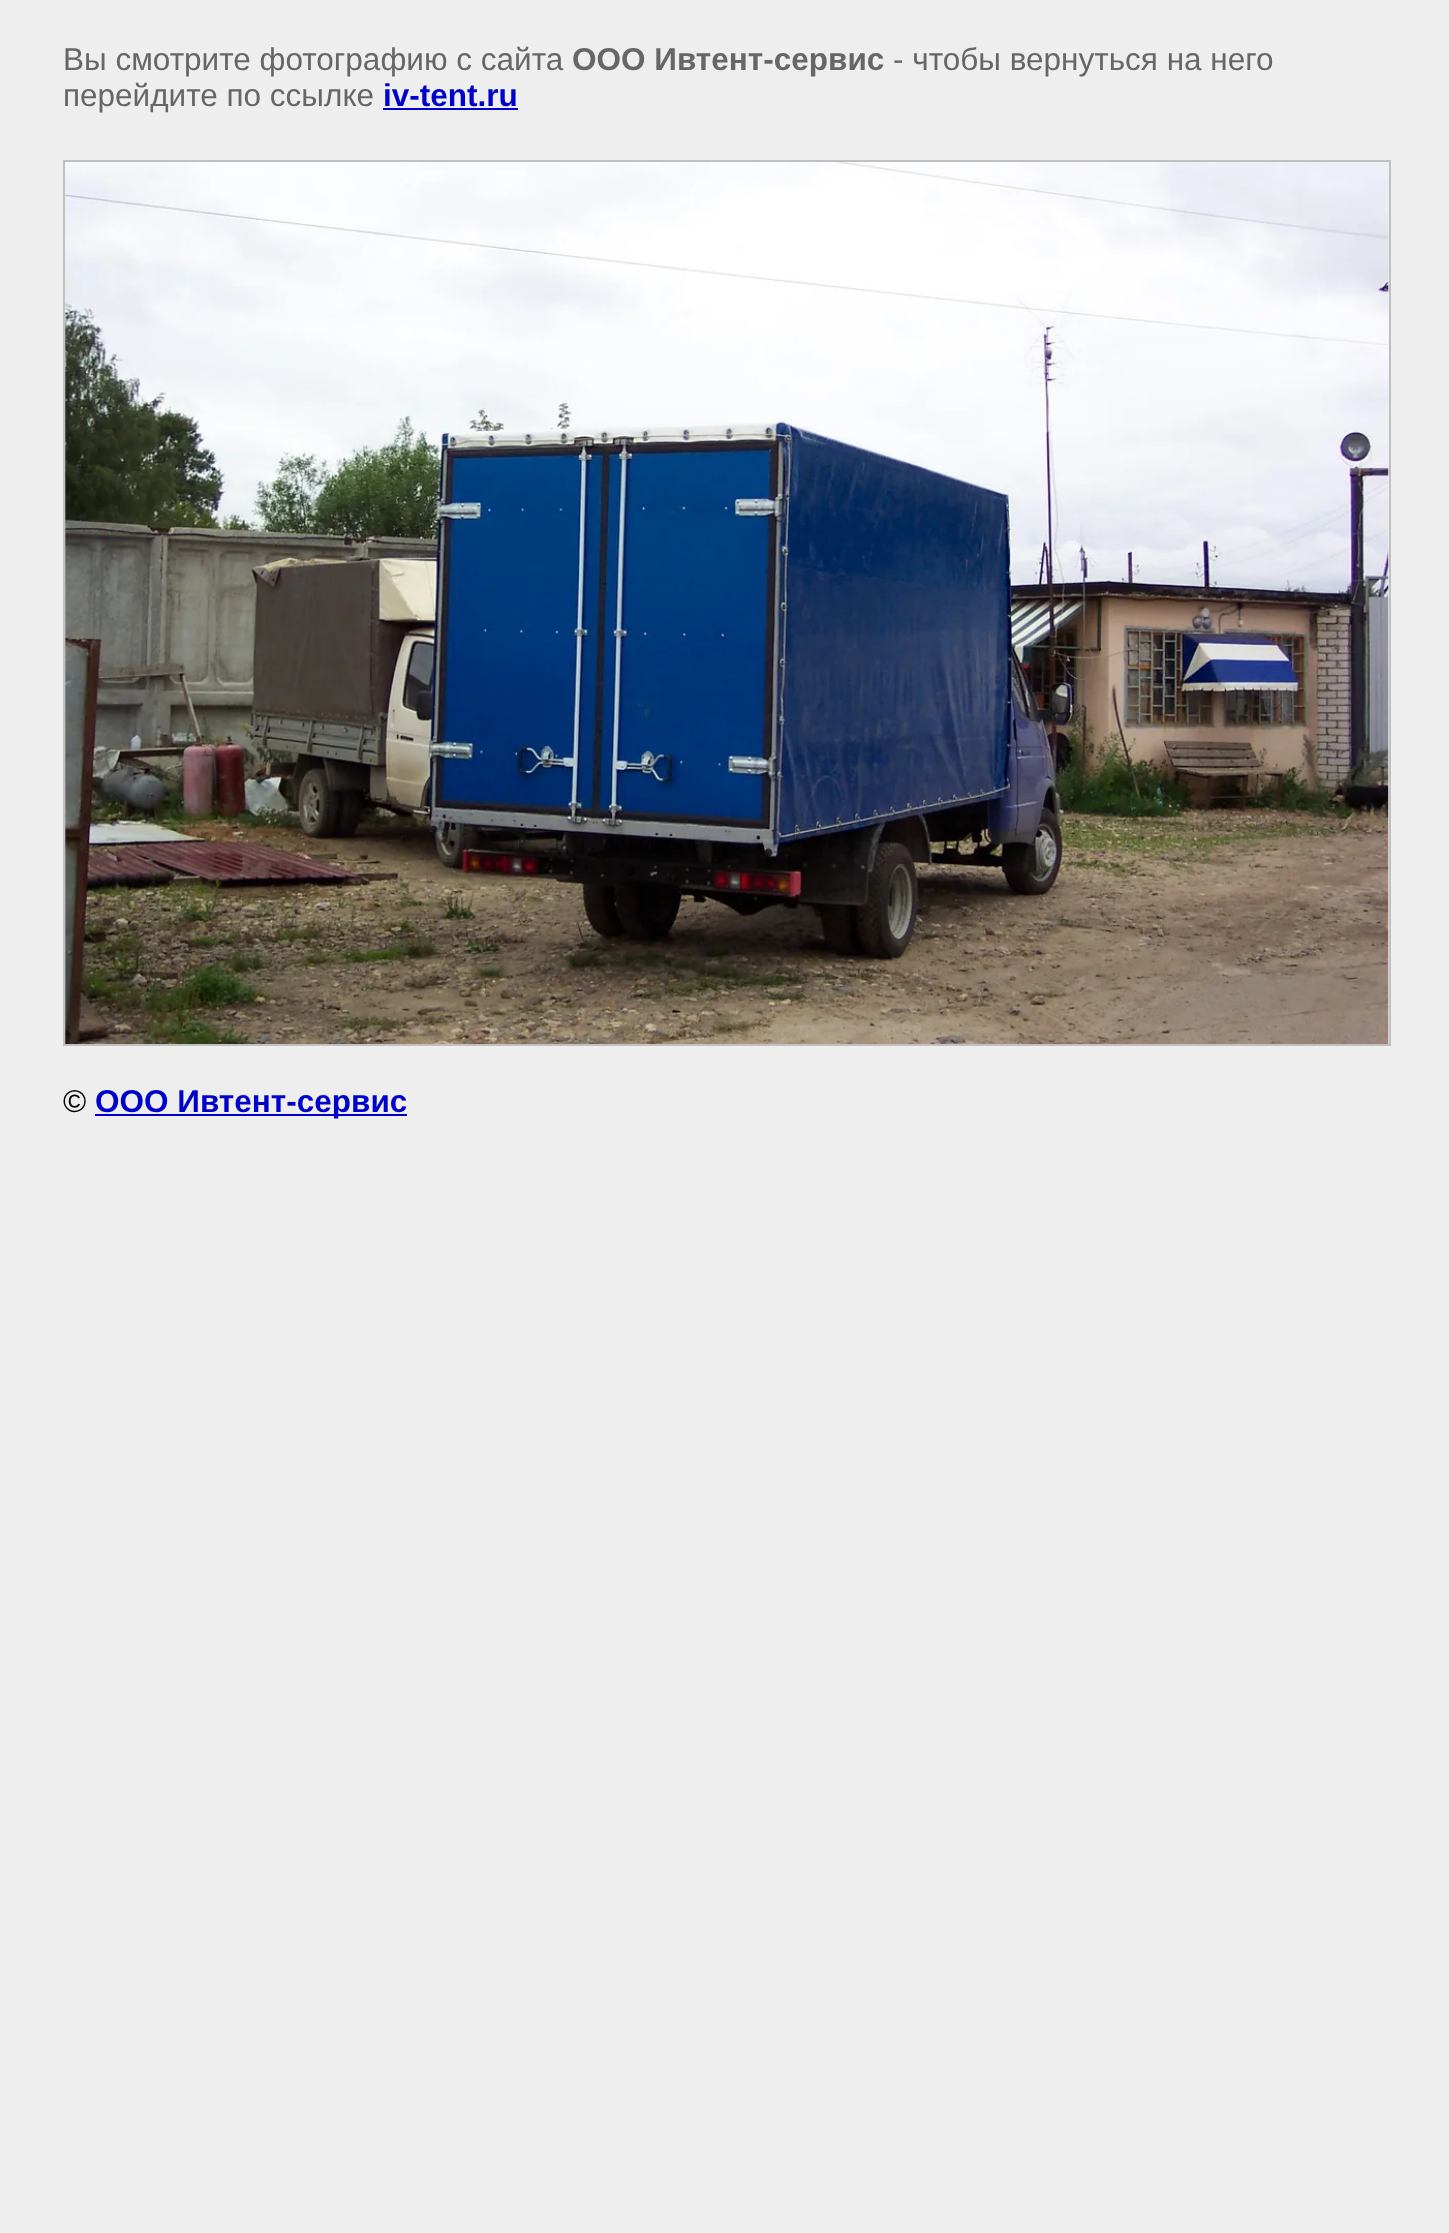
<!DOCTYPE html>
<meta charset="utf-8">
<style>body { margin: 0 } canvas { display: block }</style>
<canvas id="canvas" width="1449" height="2233"></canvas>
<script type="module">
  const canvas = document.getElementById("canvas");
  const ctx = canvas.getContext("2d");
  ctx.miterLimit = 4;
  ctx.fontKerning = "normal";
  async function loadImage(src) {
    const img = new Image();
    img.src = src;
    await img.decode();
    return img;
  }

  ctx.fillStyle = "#eeeeee";
  ctx.fillRect(0, 0, 1449, 2233);
  ctx.font = "31.5px Liberation Sans";
  ctx.fillStyle = "#666666";
  ctx.fillText("Вы смотрите фотографию с сайта", 63, 70);
  ctx.font = "bold 31.5px Liberation Sans";
  ctx.fillText("ООО Ивтент-сервис", 572, 70);
  ctx.font = "31.5px Liberation Sans";
  ctx.fillText("- чтобы вернуться на него", 893, 70);
  ctx.fillText("перейдите по ссылке", 63, 106);
  ctx.font = "bold 31.5px Liberation Sans";
  ctx.fillStyle = "#0000cc";
  ctx.fillText("iv-tent.ru", 383, 106);
  ctx.fillRect(383, 108, 135, 2);
  ctx.strokeStyle = "#c0c0c0";
  ctx.lineWidth = 2;
  ctx.strokeRect(64, 161, 1326, 884);
  ctx.drawImage(await loadImage("img1.png"), 65, 162, 1324, 882);
  ctx.font = "31.5px Liberation Sans";
  ctx.fillStyle = "#000000";
  ctx.fillText("©", 63, 1112);
  ctx.fillStyle = "#0000cc";
  ctx.fillRect(95, 1114, 312, 2);
  ctx.font = "bold 31.5px Liberation Sans";
  ctx.fillText("ООО Ивтент-сервис", 95, 1112);
</script>
